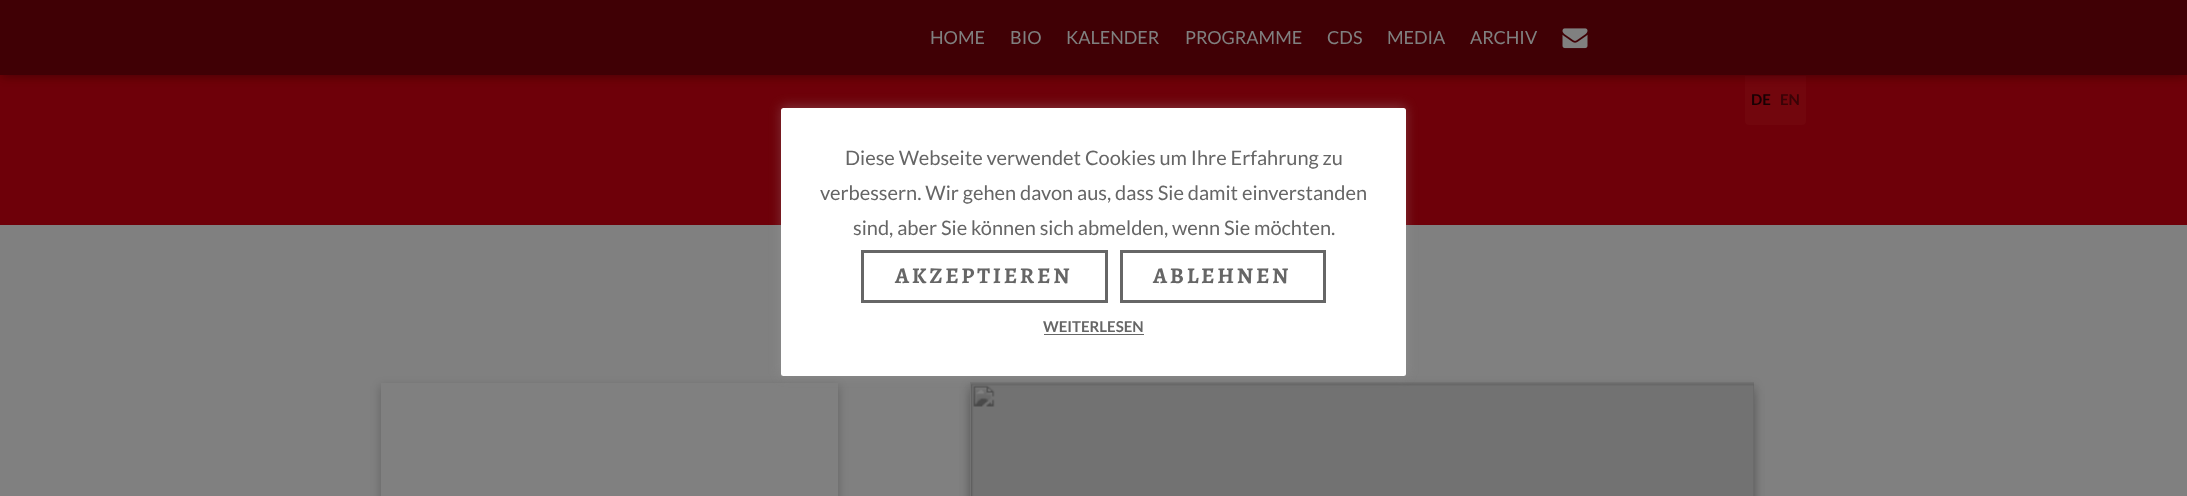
<!DOCTYPE html>
<meta charset="utf-8">
<style>body { margin: 0 } canvas { display: block }</style>
<canvas id="canvas" width="2187" height="496"></canvas>
<script type="module">
  const canvas = document.getElementById("canvas");
  const ctx = canvas.getContext("2d");
  ctx.miterLimit = 4;
  ctx.fontKerning = "normal";
  async function loadImage(src) {
    const img = new Image();
    img.src = src;
    await img.decode();
    return img;
  }

  ctx.fillStyle = "#808080";
  ctx.fillRect(0, 0, 2187, 496);
  ctx.fillStyle = "#6e0009";
  ctx.fillRect(0, 75, 2187, 150);
  ctx.fillStyle = "rgba(119, 14, 18, 0.42)";
  ctx.beginPath();
  ctx.roundRect(1745, 76, 61, 49, [0, 0, 4, 4]);
  ctx.fill();
  ctx.fillStyle = "rgba(0, 0, 0, 0.1)";
  ctx.filter = "blur(3px)";
  ctx.beginPath();
  ctx.rect(3, 8, 2182, 70);
  ctx.fill();
  ctx.filter = "none";
  ctx.fillStyle = "rgba(0, 0, 0, 0.12)";
  ctx.filter = "blur(6px)";
  ctx.beginPath();
  ctx.rect(0, 1, 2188, 75);
  ctx.fill();
  ctx.filter = "none";
  ctx.fillStyle = "rgba(0, 0, 0, 0.42)";
  ctx.filter = "blur(6px)";
  ctx.beginPath();
  ctx.rect(8, 9, 2172, 60);
  ctx.fill();
  ctx.filter = "none";
  ctx.fillStyle = "#400005";
  ctx.fillRect(0, 0, 2187, 75);
  ctx.font = "18px Lato";
  ctx.fillStyle = "#808080";
  ctx.fillText("HOME", 930, 44);
  ctx.fillText("BIO", 1010, 44);
  ctx.fillText("KALENDER", 1066, 44);
  ctx.fillText("PROGRAMME", 1185, 44);
  ctx.fillText("CDS", 1327, 44);
  ctx.fillText("MEDIA", 1387, 44);
  ctx.fillText("ARCHIV", 1470, 44);
  ctx.drawImage(await loadImage("img1.png"), 1562, 28, 26, 21);
  ctx.font = "bold 15px Lato";
  ctx.fillStyle = "#170103";
  ctx.fillText("DE", 1751, 105);
  ctx.fillStyle = "#390306";
  ctx.fillText("EN", 1780, 105);
  ctx.save();
  ctx.beginPath();
  ctx.moveTo(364, 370);
  ctx.lineTo(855, 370);
  ctx.lineTo(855, 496);
  ctx.lineTo(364, 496);
  ctx.closePath();
  ctx.moveTo(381, 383);
  ctx.lineTo(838, 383);
  ctx.lineTo(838, 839);
  ctx.lineTo(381, 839);
  ctx.closePath();
  ctx.clip("evenodd");
  ctx.fillStyle = "rgba(0, 0, 0, 0.2)";
  ctx.filter = "blur(5px)";
  ctx.beginPath();
  ctx.rect(380, 386, 459, 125);
  ctx.fill();
  ctx.filter = "none";
  ctx.restore();
  ctx.fillStyle = "rgba(0, 0, 0, 0.15)";
  ctx.filter = "blur(6px)";
  ctx.beginPath();
  ctx.rect(971, 394, 782, 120);
  ctx.fill();
  ctx.filter = "none";
  ctx.fillStyle = "rgba(0, 0, 0, 0.2)";
  ctx.filter = "blur(5px)";
  ctx.beginPath();
  ctx.rect(969, 386, 786, 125);
  ctx.fill();
  ctx.filter = "none";
  ctx.drawImage(await loadImage("img2.png"), 970, 382, 784, 114);
  ctx.fillStyle = "rgba(172, 171, 171, 0.3)";
  ctx.filter = "blur(6px)";
  ctx.beginPath();
  ctx.roundRect(781, 106, 625, 269, 2.5);
  ctx.fill();
  ctx.filter = "none";
  ctx.fillStyle = "#ffffff";
  ctx.beginPath();
  ctx.roundRect(781, 108, 625, 268, 2.5);
  ctx.fill();
  ctx.font = "20px Lato";
  ctx.fillStyle = "#666666";
  ctx.fillText("Diese Webseite verwendet Cookies um Ihre Erfahrung zu", 845, 165);
  ctx.fillText("verbessern. Wir gehen davon aus, dass Sie damit einverstanden", 820, 200);
  ctx.fillText("sind, aber Sie können sich abmelden, wenn Sie möchten.", 853, 235);
  ctx.strokeStyle = "#666666";
  ctx.lineWidth = 3;
  ctx.strokeRect(862.5, 251.5, 244, 50);
  ctx.letterSpacing = "2.75px";
  ctx.font = "bold 22.5px Alegreya";
  ctx.fillText("AKZEPTIEREN", 895, 283);
  ctx.strokeRect(1121.5, 251.5, 203, 50);
  ctx.fillText("ABLEHNEN", 1153, 283);
  ctx.letterSpacing = "0px";
  ctx.font = "bold 15px Lato";
  ctx.fillText("WEITERLESEN", 1043, 332);
  ctx.fillRect(1044, 334, 100, 1);
</script>
